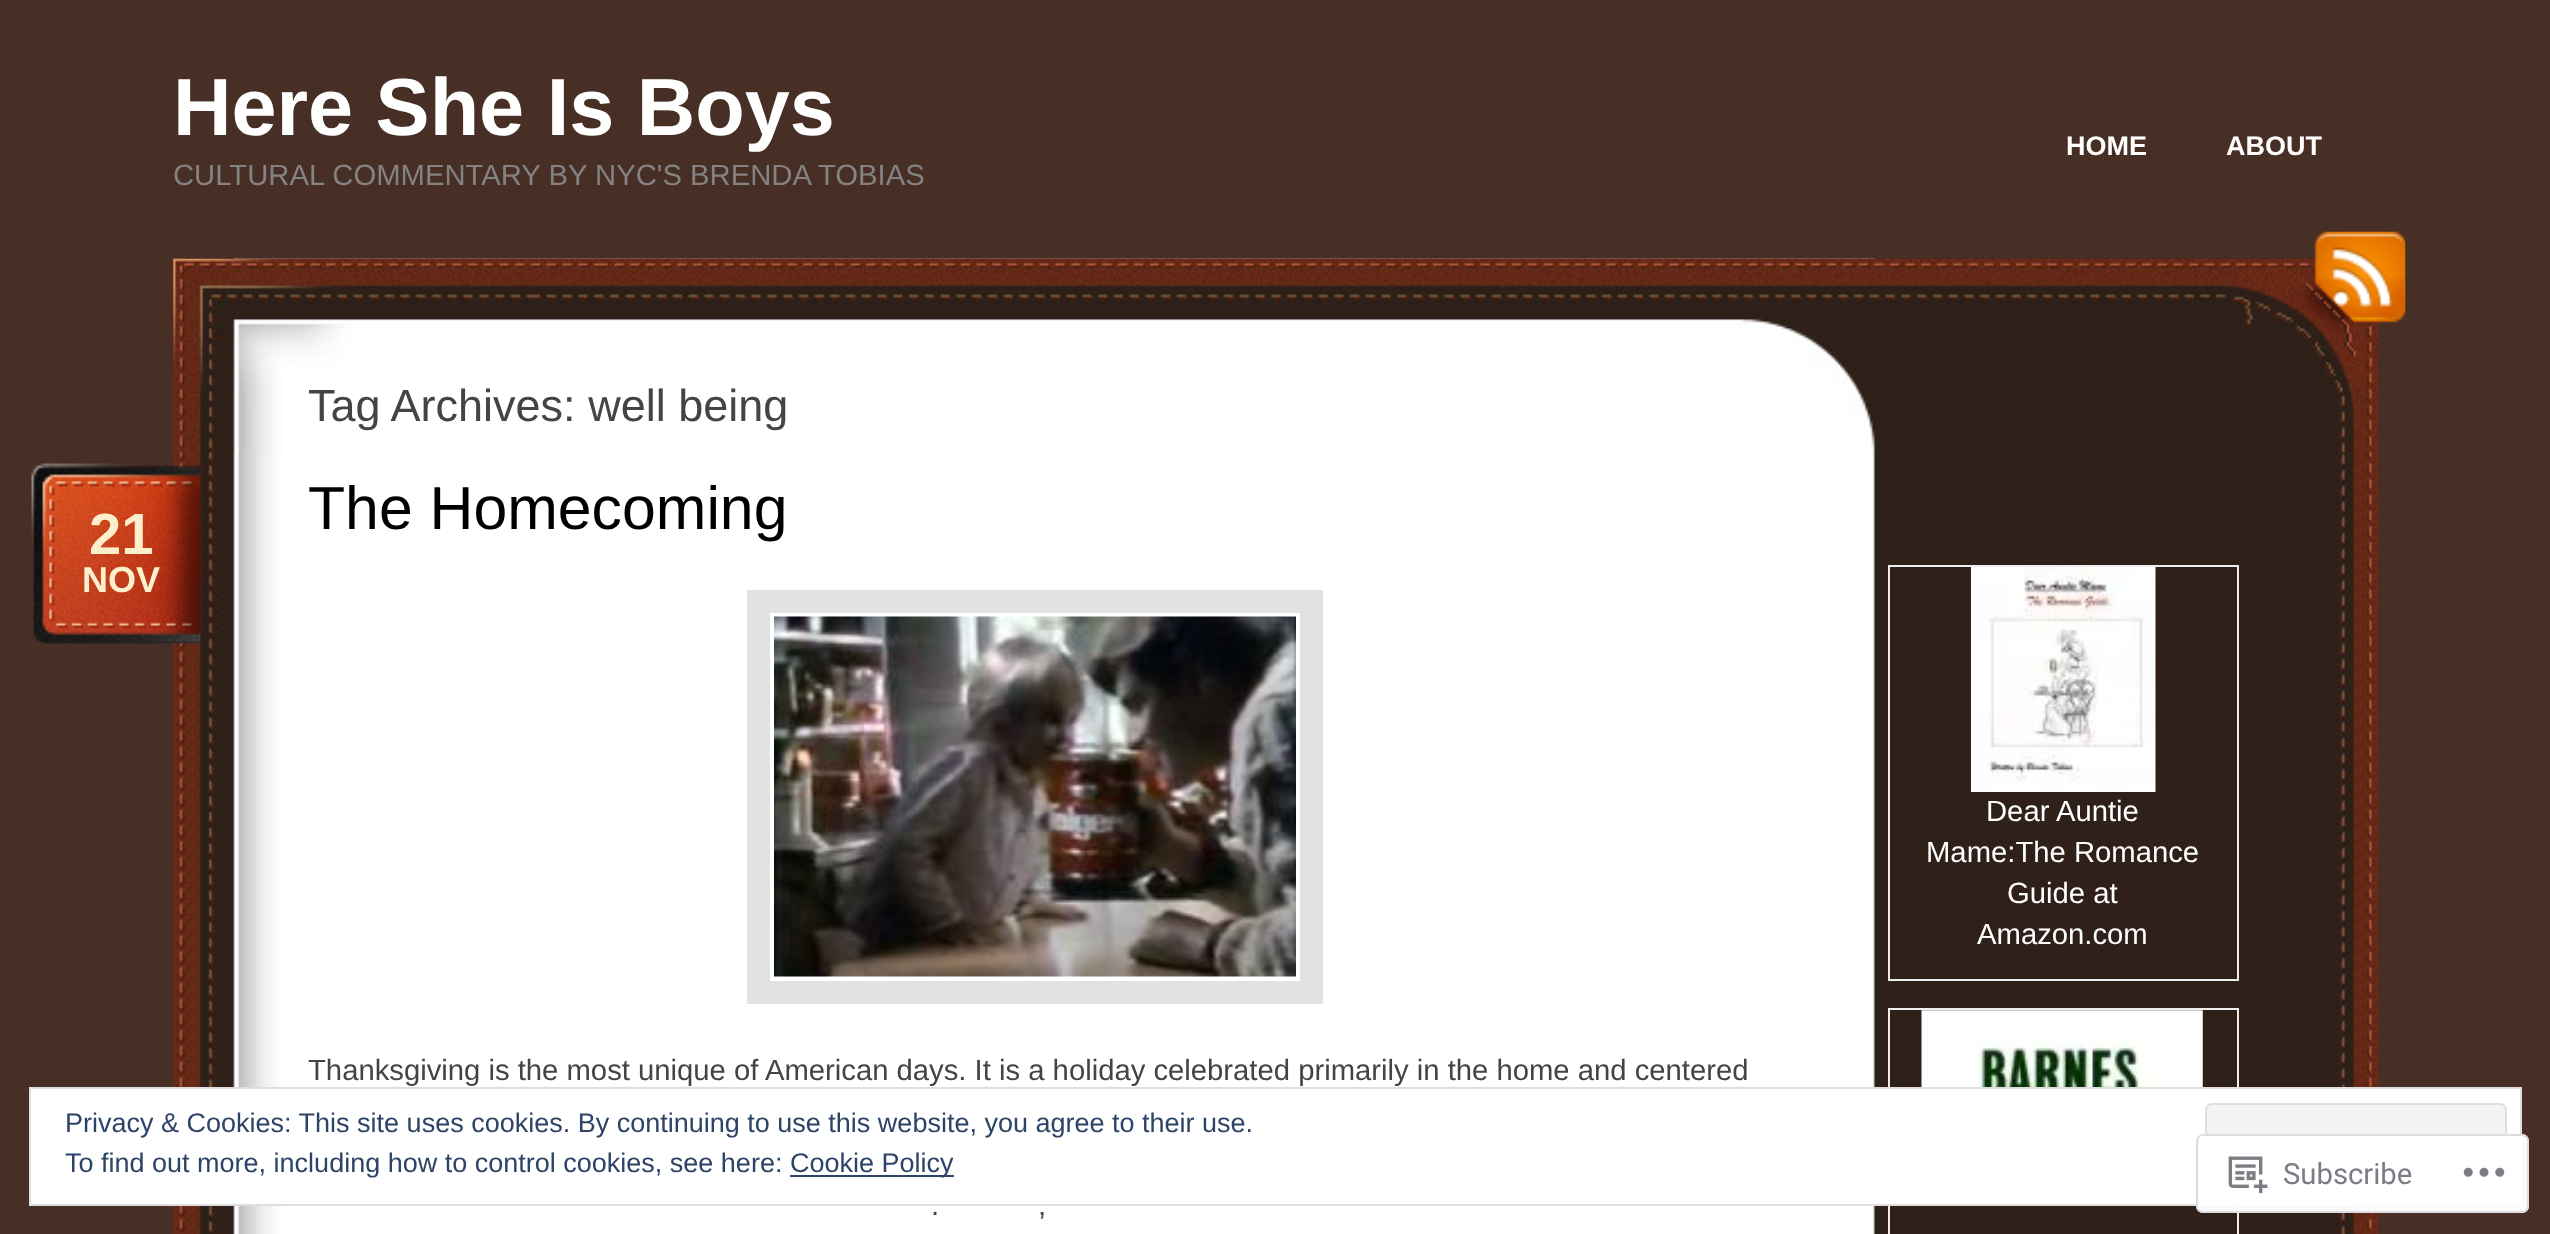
<!DOCTYPE html>
<meta charset="utf-8">
<style>body { margin: 0 } canvas { display: block }</style>
<canvas id="canvas" width="2550" height="1234"></canvas>
<script type="module">
  const canvas = document.getElementById("canvas");
  const ctx = canvas.getContext("2d");
  ctx.miterLimit = 4;
  ctx.fontKerning = "normal";
  async function loadImage(src) {
    const img = new Image();
    img.src = src;
    await img.decode();
    return img;
  }

  ctx.fillStyle = "#472f26";
  ctx.fillRect(0, 0, 2550, 1234);
  ctx.font = "bold 81px Liberation Sans";
  ctx.fillStyle = "#ffffff";
  ctx.fillText("Here She Is Boys", 173, 135);
  ctx.font = "29.25px Liberation Sans";
  ctx.fillStyle = "#848282";
  ctx.fillText("CULTURAL COMMENTARY BY NYC'S BRENDA TOBIAS", 173, 185);
  ctx.font = "bold 27px Liberation Sans";
  ctx.fillStyle = "#ffffff";
  ctx.fillText("HOME", 2066, 155);
  ctx.fillText("ABOUT", 2226, 155);
  ctx.drawImage(await loadImage("img1.png"), 173, 258, 2206, 976);
  ctx.drawImage(await loadImage("img3.png"), 173, 258, 2206, 195);
  ctx.drawImage(await loadImage("img2.png"), 2293, 231, 113, 125);
  ctx.font = "45px Liberation Sans";
  ctx.fillStyle = "#444444";
  ctx.fillText("Tag Archives: well being", 308, 421);
  ctx.drawImage(await loadImage("img4.png"), 31, 463, 170, 181);
  ctx.font = "bold 58px Liberation Sans";
  ctx.fillStyle = "#feefcc";
  ctx.fillText("21", 89, 554);
  ctx.font = "bold 36px Liberation Sans";
  ctx.fillText("NOV", 82, 592);
  ctx.font = "60.75px Liberation Sans";
  ctx.fillStyle = "#000000";
  ctx.fillText("The Homecoming", 308, 529);
  ctx.strokeStyle = "#e2e2e2";
  ctx.lineWidth = 23;
  ctx.strokeRect(758.5, 601.5, 553, 391);
  ctx.drawImage(await loadImage("img5.png"), 774, 616, 522, 361);
  ctx.font = "29.25px Liberation Sans";
  ctx.fillStyle = "#444444";
  ctx.fillText("Thanksgiving is the most unique of American days. It is a holiday celebrated primarily in the home and centered", 308, 1080);
  ctx.fillText(".", 931, 1215);
  ctx.fillText(",", 1038, 1215);
  ctx.strokeStyle = "#eeeeee";
  ctx.lineWidth = 2;
  ctx.strokeRect(1889, 566, 349, 414);
  ctx.drawImage(await loadImage("img6.png"), 1971, 567, 185, 225);
  ctx.fillStyle = "#ffffff";
  ctx.fillText("Dear Auntie", 1986, 821);
  ctx.fillText("Mame:The Romance", 1926, 862);
  ctx.fillText("Guide at", 2007, 903);
  ctx.fillText("Amazon.com", 1977, 944);
  ctx.strokeRect(1889, 1009, 349, 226);
  ctx.drawImage(await loadImage("img7.png"), 1921, 1010, 282, 77);
  ctx.beginPath();
  ctx.rect(30, 1088, 2491, 117);
  ctx.fill();
  ctx.strokeStyle = "#dedede";
  ctx.stroke();
  ctx.font = "27px Liberation Sans";
  ctx.fillStyle = "#2e4467";
  ctx.fillText("Privacy & Cookies: This site uses cookies. By continuing to use this website, you agree to their use.", 65, 1132);
  ctx.fillStyle = "#f3f3f3";
  ctx.beginPath();
  ctx.roundRect(2206, 1104, 300, 85, 6);
  ctx.fill();
  ctx.stroke();
  ctx.fillStyle = "#2e4467";
  ctx.fillText("To find out more, including how to control cookies, see here:", 65, 1172);
  ctx.fillRect(790, 1175, 164, 2);
  ctx.fillText("Cookie Policy", 790, 1172);
  ctx.fillStyle = "rgba(255, 255, 255, 0.98)";
  ctx.beginPath();
  ctx.roundRect(2196, 1134, 333, 79, 7);
  ctx.fill();
  ctx.beginPath();
  ctx.roundRect(2197, 1135, 331, 77, 6);
  ctx.strokeStyle = "rgba(220, 220, 222, 0.98)";
  ctx.stroke();
  ctx.drawImage(await loadImage("img8.png"), 2228, 1156, 40, 38);
  ctx.font = "29.25px Roboto";
  ctx.fillStyle = "#7a7e84";
  ctx.fillText("Subscribe", 2283, 1184);
  ctx.drawImage(await loadImage("img9.png"), 2463, 1167, 42, 10);
</script>
